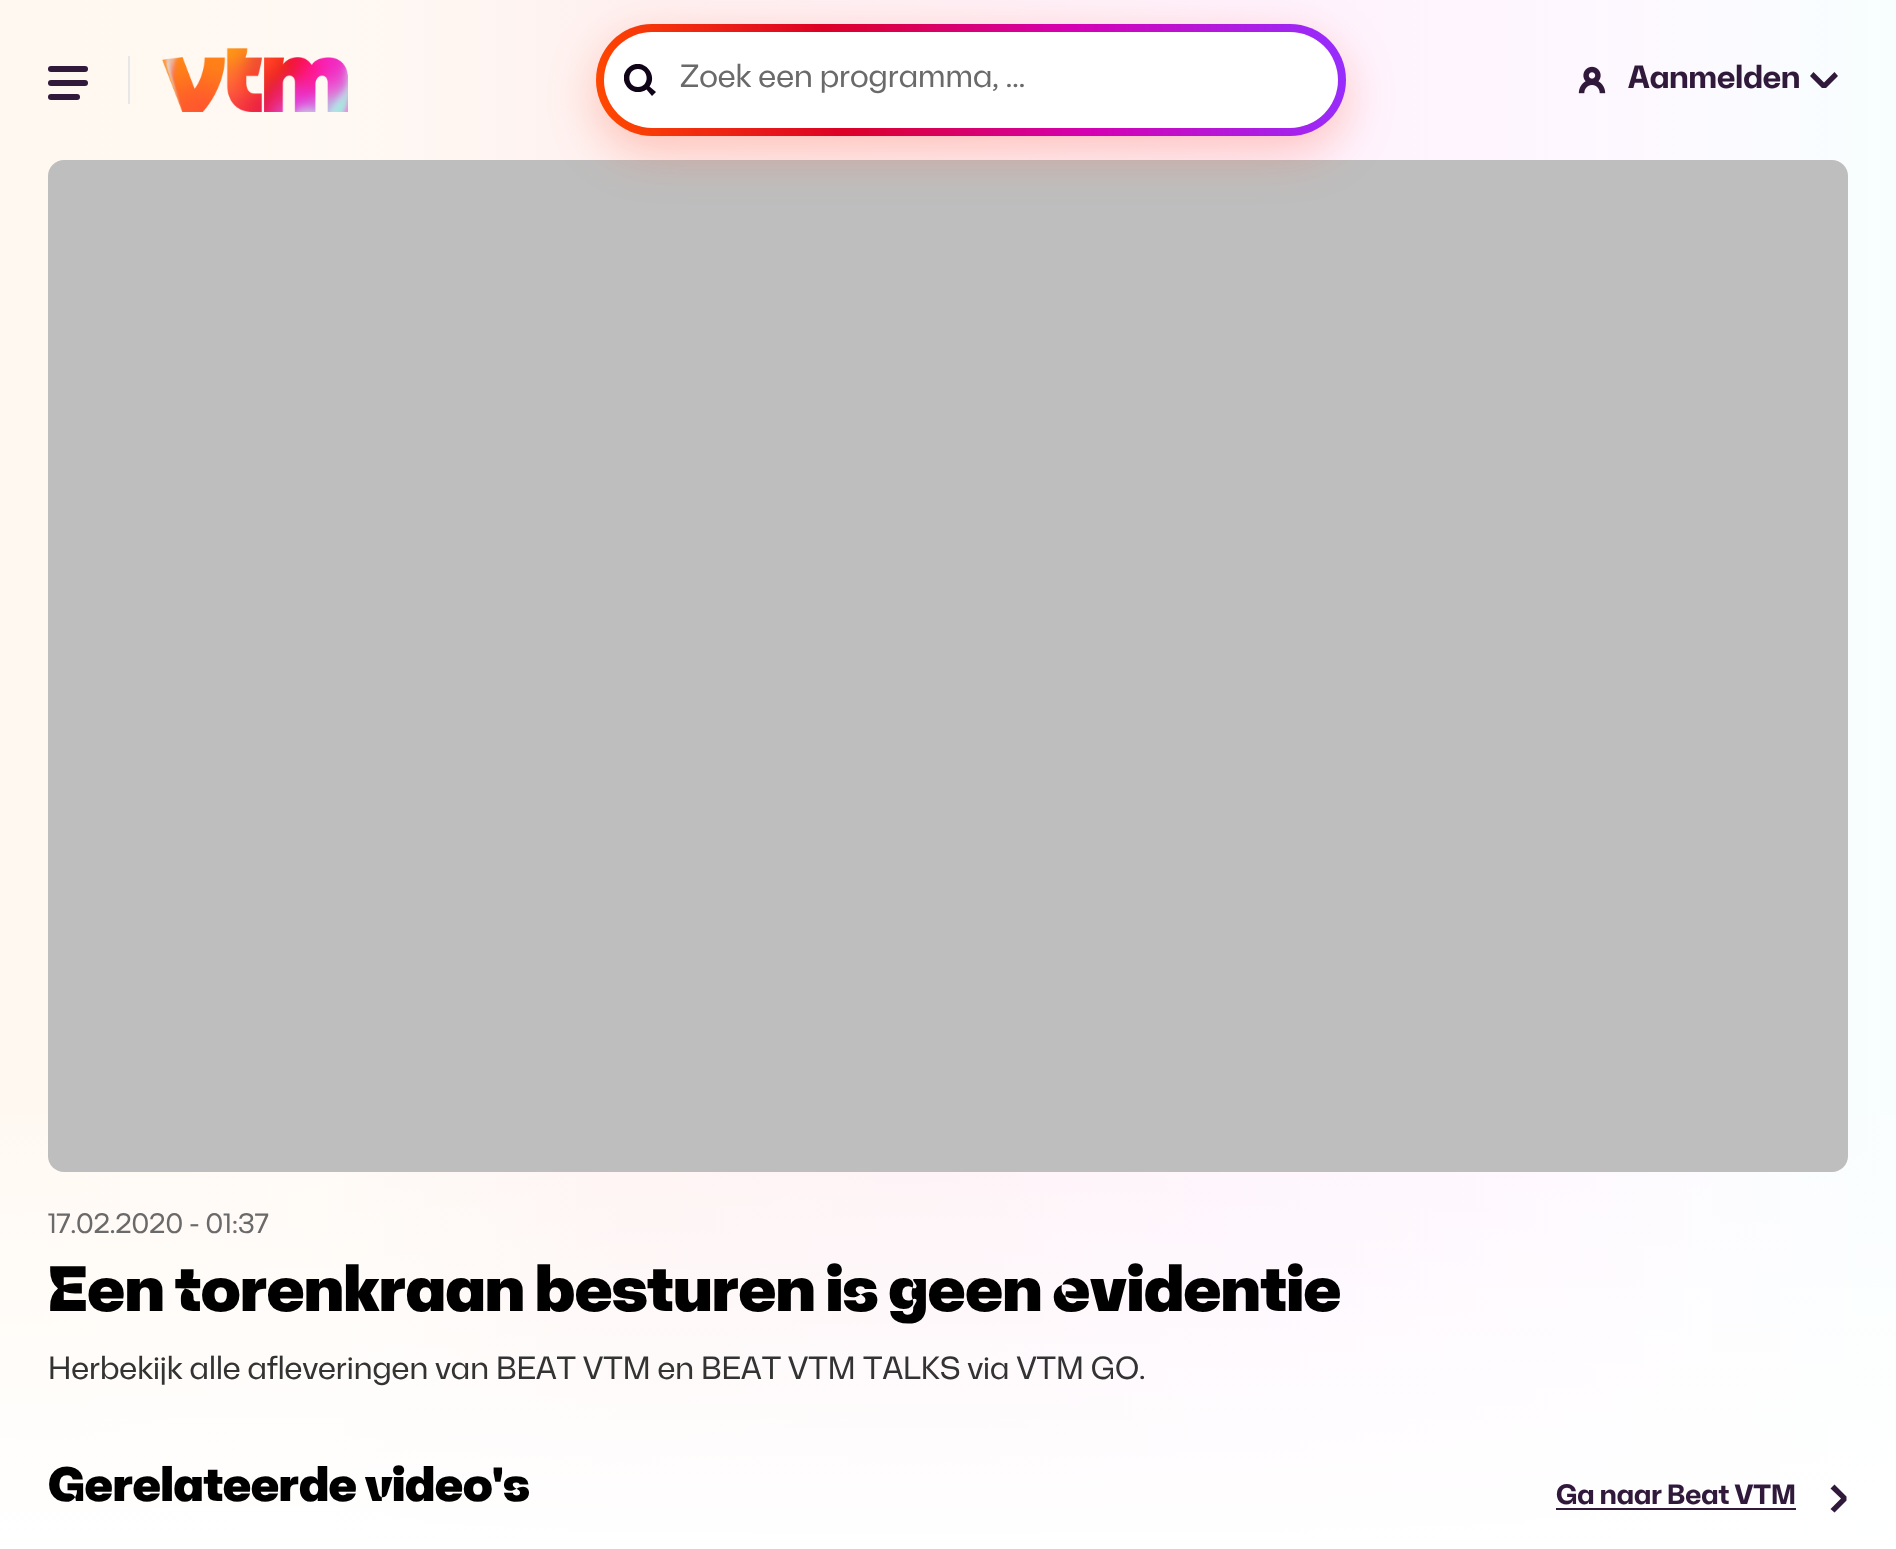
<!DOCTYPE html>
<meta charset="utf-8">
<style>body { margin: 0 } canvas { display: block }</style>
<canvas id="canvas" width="1896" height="1549"></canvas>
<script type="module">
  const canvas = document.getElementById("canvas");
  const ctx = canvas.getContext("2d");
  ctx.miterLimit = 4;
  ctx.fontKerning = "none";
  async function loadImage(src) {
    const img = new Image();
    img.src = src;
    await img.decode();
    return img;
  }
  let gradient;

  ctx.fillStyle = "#ffffff";
  ctx.fillRect(0, 0, 1896, 1549);
  gradient = ctx.createLinearGradient(0, 775, 1896, 775);
  gradient.addColorStop(0, "#fff8f0");
  gradient.addColorStop(0.17, "#fff9f3");
  gradient.addColorStop(0.33, "#fef1f0");
  gradient.addColorStop(0.5, "#fef0f5");
  gradient.addColorStop(0.67, "#fef2fd");
  gradient.addColorStop(0.83, "#fef7ff");
  gradient.addColorStop(1, "#f8fefe");
  ctx.fillStyle = gradient;
  ctx.fillRect(0, 0, 1896, 1547);
  gradient = ctx.createLinearGradient(948, 0, 948, 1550);
  gradient.addColorStop(0.66, "rgba(255, 255, 255, 0)");
  gradient.addColorStop(1, "#ffffff");
  ctx.fillStyle = gradient;
  ctx.fillRect(0, 1115, 1896, 432);
  ctx.fillStyle = "#e7e7e7";
  ctx.fillRect(128, 56, 2, 48);
  ctx.fillStyle = "#31193b";
  ctx.beginPath();
  ctx.roundRect(48, 66, 40, 6, 3);
  ctx.fill();
  ctx.beginPath();
  ctx.roundRect(48, 80, 40, 6, 3);
  ctx.fill();
  ctx.beginPath();
  ctx.roundRect(48, 94, 32, 6, 3);
  ctx.fill();
  ctx.drawImage(await loadImage("img1.png"), 162, 48, 186, 64);
  ctx.fillStyle = "#bebebe";
  ctx.beginPath();
  ctx.roundRect(48, 160, 1800, 1012, 16);
  ctx.fill();
  ctx.fillStyle = "rgba(255, 92, 61, 0.32)";
  ctx.filter = "blur(24px)";
  ctx.beginPath();
  ctx.roundRect(596, 40, 750, 112, 56);
  ctx.fill();
  ctx.filter = "none";
  gradient = ctx.createLinearGradient(1344, 15, 598, 145);
  gradient.addColorStop(0, "#952eff");
  gradient.addColorStop(0.36, "#d500b2");
  gradient.addColorStop(0.68, "#dc0025");
  gradient.addColorStop(0.99, "#ff4800");
  ctx.fillStyle = gradient;
  ctx.beginPath();
  ctx.roundRect(596, 24, 750, 112, 56);
  ctx.fill();
  ctx.fillStyle = "#ffffff";
  ctx.beginPath();
  ctx.roundRect(604, 32, 734, 96, 48);
  ctx.fill();
  ctx.save();
  ctx.beginPath();
  ctx.rect(624, 64, 32, 32);
  ctx.clip();
  ctx.fillStyle = "#100418";
  ctx.beginPath();
  ctx.moveTo(649.5, 86.5);
  ctx.bezierCurveTo(659, 72.5, 640.5, 56, 628, 68);
  ctx.bezierCurveTo(616, 80.5, 632, 99, 646.5, 89.5);
  ctx.lineTo(652, 96);
  ctx.lineTo(656, 92);
  ctx.closePath();
  ctx.moveTo(638, 87);
  ctx.bezierCurveTo(626.5, 87, 626.5, 69, 638, 69);
  ctx.bezierCurveTo(649.5, 69, 649.5, 87, 638, 87);
  ctx.closePath();
  ctx.fill();
  ctx.restore();
  ctx.font = "32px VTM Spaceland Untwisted";
  ctx.fillStyle = "#6a6a6a";
  ctx.fillText("Zoek een programma, ...", 680, 87);
  ctx.drawImage(await loadImage("img2.png"), 1578, 66, 28, 28);
  ctx.font = "bold 32px VTM Spaceland Untwisted";
  ctx.fillStyle = "#31193b";
  ctx.fillText("Aanmelden", 1628, 88);
  ctx.beginPath();
  ctx.moveTo(1826, 88);
  ctx.lineTo(1822, 88);
  ctx.lineTo(1810, 76);
  ctx.lineTo(1813.5, 72);
  ctx.lineTo(1824, 82.5);
  ctx.lineTo(1834.5, 72);
  ctx.lineTo(1838, 76);
  ctx.closePath();
  ctx.fill();
  ctx.font = "28px VTM Spaceland Untwisted";
  ctx.fillStyle = "#6a6a6a";
  ctx.fillText("17.02.2020 - 01:37", 48, 1233);
  ctx.font = "900 64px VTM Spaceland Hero";
  ctx.fillStyle = "#000000";
  ctx.fillText("Een torenkraan besturen is geen evidentie", 48, 1311);
  ctx.font = "32px VTM Spaceland Untwisted";
  ctx.fillStyle = "#333333";
  ctx.fillText("Herbekijk alle afleveringen van BEAT", 48, 1379);
  ctx.fillText("VTM en BEAT VTM", 583, 1379);
  ctx.fillText("TALKS via VTM GO.", 863, 1379);
  ctx.font = "900 48px VTM Spaceland Hero";
  ctx.fillStyle = "#000000";
  ctx.fillText("Gerelateerde video's", 48, 1501);
  ctx.font = "bold 28px VTM Spaceland Untwisted";
  ctx.fillStyle = "#31193b";
  ctx.fillText("Ga naar Beat VTM", 1556, 1504);
  ctx.fillRect(1556, 1508, 240, 2);
  ctx.beginPath();
  ctx.moveTo(1846.5, 1496.5);
  ctx.lineTo(1846.5, 1500.5);
  ctx.lineTo(1834.5, 1512.5);
  ctx.lineTo(1830.5, 1509);
  ctx.lineTo(1841, 1498.5);
  ctx.lineTo(1830.5, 1488.5);
  ctx.lineTo(1834.5, 1484.5);
  ctx.closePath();
  ctx.fill();
</script>
